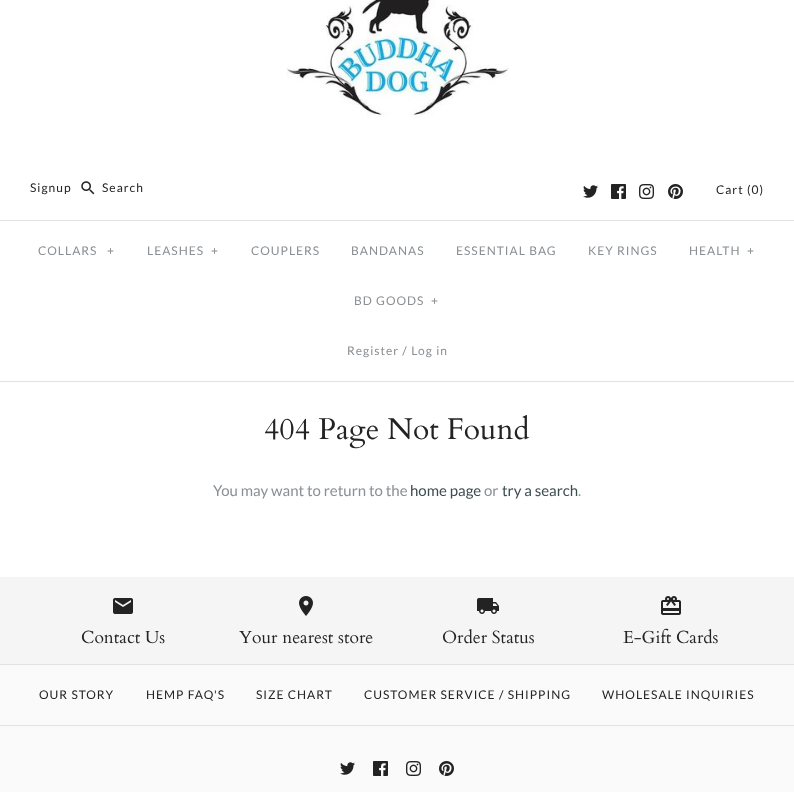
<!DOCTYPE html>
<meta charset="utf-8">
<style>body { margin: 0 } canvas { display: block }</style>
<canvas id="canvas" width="794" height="792"></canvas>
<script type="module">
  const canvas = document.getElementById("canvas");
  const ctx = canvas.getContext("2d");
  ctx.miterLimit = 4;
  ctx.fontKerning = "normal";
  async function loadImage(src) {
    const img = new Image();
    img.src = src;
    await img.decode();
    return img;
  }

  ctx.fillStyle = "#ffffff";
  ctx.fillRect(0, 0, 794, 792);
  ctx.drawImage(await loadImage("img1.png"), 287, 0, 222, 118);
  ctx.letterSpacing = "1px";
  ctx.font = "12px Lato";
  ctx.fillStyle = "#232323";
  ctx.fillText("Signup", 30, 192);
  ctx.drawImage(await loadImage("img2.png"), 81, 181, 14, 14);
  ctx.fillText("Search", 102, 192);
  ctx.drawImage(await loadImage("img3.png"), 583, 185, 15, 13);
  ctx.drawImage(await loadImage("img4.png"), 611, 184, 15, 15);
  ctx.drawImage(await loadImage("img5.png"), 639, 184, 15, 15);
  ctx.drawImage(await loadImage("img6.png"), 668, 184, 15, 15);
  ctx.fillText("Cart (0)", 716, 194);
  ctx.fillStyle = "#e2e2e2";
  ctx.fillRect(0, 381, 794, 1);
  ctx.fillRect(0, 220, 794, 1);
  ctx.fillStyle = "#8a8f93";
  ctx.fillText("COLLARS", 38, 255);
  ctx.fillText("+", 107, 255);
  ctx.fillText("LEASHES", 147, 255);
  ctx.fillText("+", 211, 255);
  ctx.fillText("COUPLERS", 251, 255);
  ctx.fillText("BANDANAS", 351, 255);
  ctx.fillText("ESSENTIAL BAG", 456, 255);
  ctx.fillText("KEY RINGS", 588, 255);
  ctx.fillText("HEALTH", 689, 255);
  ctx.fillText("+", 747, 255);
  ctx.fillText("BD GOODS", 354, 305);
  ctx.fillText("+", 431, 305);
  ctx.fillText("Register / Log in", 347, 355);
  ctx.letterSpacing = "0px";
  ctx.font = "30px Cardo";
  ctx.fillStyle = "#232323";
  ctx.fillText("404 Page Not Found", 264, 439);
  ctx.font = "15px Lato";
  ctx.fillStyle = "#8a8f93";
  ctx.fillText("You may want to return to the", 213, 496);
  ctx.fillStyle = "#3d4c4f";
  ctx.fillText("home page", 410, 496);
  ctx.fillStyle = "#8a8f93";
  ctx.fillText("or", 484, 496);
  ctx.fillStyle = "#3d4c4f";
  ctx.fillText("try a search", 502, 496);
  ctx.fillStyle = "#8a8f93";
  ctx.fillText(".", 578, 496);
  ctx.fillStyle = "#fafafa";
  ctx.fillRect(0, 665, 794, 127);
  ctx.fillStyle = "#f5f5f5";
  ctx.fillRect(0, 577, 794, 87);
  ctx.drawImage(await loadImage("img7.png"), 113, 598, 20, 16);
  ctx.font = "17.5px Cardo";
  ctx.fillStyle = "#232323";
  ctx.fillText("Contact Us", 81, 643);
  ctx.drawImage(await loadImage("img8.png"), 299, 596, 14, 20);
  ctx.fillText("Your nearest store", 239, 643);
  ctx.drawImage(await loadImage("img9.png"), 477, 598, 22, 16);
  ctx.fillText("Order Status", 442, 643);
  ctx.drawImage(await loadImage("img10.png"), 661, 596, 20, 19);
  ctx.fillText("E-Gift Cards", 623, 643);
  ctx.fillStyle = "#e2e2e2";
  ctx.fillRect(0, 664, 794, 1);
  ctx.fillRect(0, 725, 794, 1);
  ctx.letterSpacing = "1px";
  ctx.font = "12px Lato";
  ctx.fillStyle = "#232323";
  ctx.fillText("OUR STORY", 39, 699);
  ctx.fillText("HEMP FAQ'S", 146, 699);
  ctx.fillText("SIZE CHART", 256, 699);
  ctx.fillText("CUSTOMER SERVICE / SHIPPING", 364, 699);
  ctx.fillText("WHOLESALE INQUIRIES", 602, 699);
  ctx.drawImage(await loadImage("img11.png"), 340, 762, 15, 13);
  ctx.drawImage(await loadImage("img12.png"), 373, 761, 15, 15);
  ctx.drawImage(await loadImage("img13.png"), 406, 761, 15, 15);
  ctx.drawImage(await loadImage("img14.png"), 439, 761, 15, 15);
</script>
